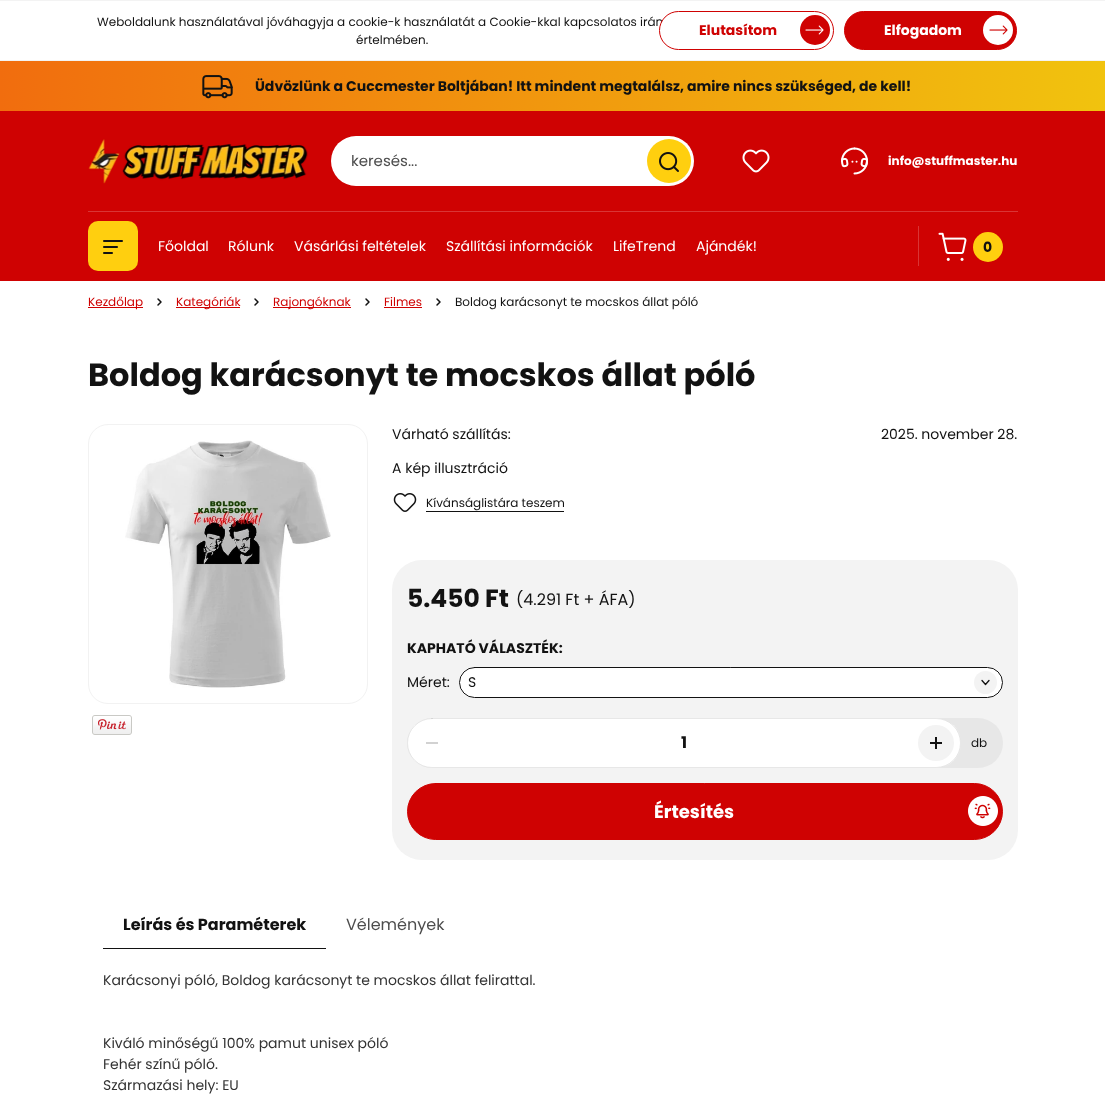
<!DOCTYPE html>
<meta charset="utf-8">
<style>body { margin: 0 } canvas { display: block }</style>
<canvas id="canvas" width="1105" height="1097"></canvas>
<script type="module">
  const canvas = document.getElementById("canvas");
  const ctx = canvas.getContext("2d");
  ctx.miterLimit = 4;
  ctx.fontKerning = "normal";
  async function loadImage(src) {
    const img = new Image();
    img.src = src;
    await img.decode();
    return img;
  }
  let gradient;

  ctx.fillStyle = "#ffffff";
  ctx.fillRect(0, 0, 1105, 1097);
  ctx.fillStyle = "#f3f3f3";
  ctx.fillRect(0, 0, 1105, 1);
  ctx.fillRect(0, 60, 1105, 1);
  ctx.font = "12px Poppins";
  ctx.fillStyle = "#121212";
  ctx.fillText("Weboldalunk használatával jóváhagyja a cookie-k használatát a Cookie-kkal kapcsolatos irán", 97, 26);
  ctx.fillText("értelmében.", 356, 44);
  ctx.fillStyle = "#ffffff";
  ctx.beginPath();
  ctx.roundRect(659.5, 11.5, 174, 38, 19);
  ctx.fill();
  ctx.strokeStyle = "#cf0202";
  ctx.stroke();
  ctx.font = "bold 14px Poppins";
  ctx.fillStyle = "#cf0202";
  ctx.fillText("Elutasítom", 699, 35);
  ctx.beginPath();
  ctx.arc(815, 30, 15, 0, Math.PI * 2);
  ctx.fill();
  ctx.drawImage(await loadImage("img1.png"), 805, 25, 19, 10);
  ctx.beginPath();
  ctx.roundRect(844.5, 11.5, 172, 38, 19);
  ctx.fill();
  ctx.stroke();
  ctx.fillStyle = "#ffffff";
  ctx.fillText("Elfogadom", 884, 35);
  ctx.beginPath();
  ctx.arc(998, 30, 15, 0, Math.PI * 2);
  ctx.fill();
  ctx.drawImage(await loadImage("img2.png"), 989, 25, 19, 10);
  ctx.fillStyle = "#cf0202";
  ctx.fillRect(0, 111, 1105, 170);
  gradient = ctx.createLinearGradient(0, 86, 1105, 86);
  gradient.addColorStop(0, "#f16d0e");
  gradient.addColorStop(1, "#f1c30e");
  ctx.fillStyle = gradient;
  ctx.fillRect(0, 61, 1105, 50);
  ctx.drawImage(await loadImage("img3.png"), 202, 75, 31, 24);
  ctx.fillStyle = "#121212";
  ctx.fillText("Üdvözlünk a Cuccmester Boltjában! Itt mindent megtalálsz, amire nincs szükséged, de kell!", 255, 91);
  ctx.drawImage(await loadImage("img4.png"), 88, 139, 220, 45);
  ctx.fillStyle = "#ffffff";
  ctx.beginPath();
  ctx.roundRect(331, 136, 363, 50, 25);
  ctx.fill();
  ctx.font = "15px Poppins";
  ctx.fillStyle = "#4d4d4d";
  ctx.fillText("keresés...", 351, 166);
  ctx.fillStyle = "#ffcf0f";
  ctx.beginPath();
  ctx.arc(669, 161, 22, 0, Math.PI * 2);
  ctx.fill();
  ctx.drawImage(await loadImage("img5.png"), 659, 152, 20, 20);
  ctx.drawImage(await loadImage("img6.png"), 742, 149, 28, 24);
  ctx.drawImage(await loadImage("img7.png"), 841, 147, 27, 28);
  ctx.font = "bold 12px Poppins";
  ctx.fillStyle = "#ffffff";
  ctx.fillText("info@stuffmaster.hu", 888, 165);
  ctx.fillStyle = "#d93535";
  ctx.fillRect(88, 211, 930, 1);
  ctx.fillStyle = "#ffcf0f";
  ctx.beginPath();
  ctx.roundRect(88, 221, 50, 50, 10);
  ctx.fill();
  ctx.drawImage(await loadImage("img8.png"), 103, 240, 20, 14);
  ctx.font = "14px Poppins";
  ctx.fillStyle = "#ffffff";
  ctx.fillText("Főoldal", 158, 251);
  ctx.fillText("Rólunk", 228, 251);
  ctx.fillText("Vásárlási feltételek", 294, 251);
  ctx.fillText("Szállítási információk", 446, 251);
  ctx.fillText("LifeTrend", 613, 251);
  ctx.fillText("Ajándék!", 696, 251);
  ctx.fillStyle = "#d93535";
  ctx.fillRect(918, 226, 1, 40);
  ctx.drawImage(await loadImage("img9.png"), 938, 232, 29, 29);
  ctx.fillStyle = "#ffcf0f";
  ctx.beginPath();
  ctx.arc(988, 247, 15, 0, Math.PI * 2);
  ctx.fill();
  ctx.font = "bold 14px Poppins";
  ctx.fillStyle = "#121212";
  ctx.fillText("0", 983, 252);
  ctx.fillStyle = "#cf0202";
  ctx.fillRect(88, 307, 55, 1);
  ctx.font = "12px Poppins";
  ctx.fillText("Kezdőlap", 88, 306);
  ctx.beginPath();
  ctx.moveTo(158, 305);
  ctx.lineTo(161, 302);
  ctx.lineTo(158, 299);
  ctx.strokeStyle = "#121212";
  ctx.lineWidth = 1.5;
  ctx.lineCap = "round";
  ctx.lineJoin = "round";
  ctx.stroke();
  ctx.fillRect(176, 307, 64, 1);
  ctx.fillText("Kategóriák", 176, 306);
  ctx.beginPath();
  ctx.moveTo(255, 305);
  ctx.lineTo(258, 302);
  ctx.lineTo(255, 299);
  ctx.stroke();
  ctx.fillRect(273, 307, 78, 1);
  ctx.fillText("Rajongóknak", 273, 306);
  ctx.beginPath();
  ctx.moveTo(366, 305);
  ctx.lineTo(369, 302);
  ctx.lineTo(366, 299);
  ctx.stroke();
  ctx.fillText("Filmes", 384, 306);
  ctx.fillRect(384, 307, 38, 1);
  ctx.beginPath();
  ctx.moveTo(437, 305);
  ctx.lineTo(440, 302);
  ctx.lineTo(437, 299);
  ctx.stroke();
  ctx.fillStyle = "#121212";
  ctx.fillText("Boldog karácsonyt te mocskos állat póló", 455, 306);
  ctx.font = "bold 32px Poppins";
  ctx.fillText("Boldog karácsonyt te mocskos állat póló", 88, 386);
  ctx.beginPath();
  ctx.roundRect(88.5, 424.5, 279, 279, 19.5);
  ctx.strokeStyle = "#f2f2f2";
  ctx.lineWidth = 1;
  ctx.lineJoin = "miter";
  ctx.stroke();
  ctx.drawImage(await loadImage("img10.png"), 125, 440, 206, 248);
  ctx.drawImage(await loadImage("img11.png"), 92, 715, 40, 20);
  ctx.font = "14px Poppins";
  ctx.fillText("Várható szállítás:", 392, 439);
  ctx.fillText("2025. november 28.", 881, 439);
  ctx.fillText("A kép illusztráció", 392, 473);
  ctx.drawImage(await loadImage("img12.png"), 393, 493, 24, 19);
  ctx.font = "12px Poppins";
  ctx.fillText("Kívánságlistára teszem", 426, 507);
  ctx.fillRect(426, 511, 138, 1);
  ctx.fillStyle = "#f3f3f3";
  ctx.beginPath();
  ctx.roundRect(392, 560, 626, 300, 30);
  ctx.fill();
  ctx.font = "bold 25px Poppins";
  ctx.fillStyle = "#121212";
  ctx.fillText("5.450 Ft", 407, 607);
  ctx.font = "16px Poppins";
  ctx.fillText("(4.291 Ft + ÁFA)", 516, 605);
  ctx.font = "bold 14px Poppins";
  ctx.fillText("KAPHATÓ VÁLASZTÉK:", 407, 653);
  ctx.font = "14px Poppins";
  ctx.fillText("Méret:", 407, 687);
  ctx.fillStyle = "#ffffff";
  ctx.beginPath();
  ctx.roundRect(459, 667, 544, 31, 15.5);
  ctx.fill();
  ctx.fillStyle = "#f3f3f3";
  ctx.beginPath();
  ctx.arc(985.5, 682.5, 11.5, 0, Math.PI * 2);
  ctx.fill();
  ctx.beginPath();
  ctx.moveTo(982, 680.5);
  ctx.lineTo(985.5, 684.5);
  ctx.lineTo(989, 680.5);
  ctx.strokeStyle = "#121212";
  ctx.lineWidth = 1.3;
  ctx.lineJoin = "round";
  ctx.stroke();
  ctx.beginPath();
  ctx.roundRect(459.5, 667.5, 543, 30, 15);
  ctx.lineWidth = 1;
  ctx.lineJoin = "miter";
  ctx.stroke();
  ctx.fillStyle = "#121212";
  ctx.fillText("S", 468, 687);
  ctx.fillStyle = "#e7e7e7";
  ctx.beginPath();
  ctx.roundRect(407, 718, 596, 50, 25);
  ctx.fill();
  ctx.fillStyle = "#ffffff";
  ctx.beginPath();
  ctx.roundRect(407, 718, 554, 50, 25);
  ctx.fill();
  ctx.beginPath();
  ctx.roundRect(407.5, 718.5, 553, 49, 24.5);
  ctx.strokeStyle = "rgba(18, 18, 18, 0.1)";
  ctx.stroke();
  ctx.fillStyle = "#d2d2d2";
  ctx.fillRect(426, 742, 12, 2);
  ctx.font = "bold 16px Poppins";
  ctx.fillStyle = "#121212";
  ctx.fillText("1", 681, 748);
  ctx.fillStyle = "#f3f3f3";
  ctx.beginPath();
  ctx.arc(936, 743, 18, 0, Math.PI * 2);
  ctx.fill();
  ctx.fillStyle = "#121212";
  ctx.fillRect(930, 742, 12, 2);
  ctx.fillRect(935, 737, 2, 12);
  ctx.font = "12px Poppins";
  ctx.fillText("db", 971, 747);
  ctx.fillStyle = "#cf0202";
  ctx.beginPath();
  ctx.roundRect(407.5, 783.5, 595, 56, 28);
  ctx.fill();
  ctx.strokeStyle = "#cf0202";
  ctx.stroke();
  ctx.font = "bold 18px Poppins";
  ctx.fillStyle = "#ffffff";
  ctx.fillText("Értesítés", 654, 818);
  ctx.drawImage(await loadImage("img13.png"), 968, 796, 30, 30);
  ctx.save();
  ctx.beginPath();
  ctx.rect(103, 900, 223, 49);
  ctx.clip();
  ctx.fillStyle = "#121212";
  ctx.beginPath();
  ctx.moveTo(4, 801);
  ctx.lineTo(425, 801);
  ctx.lineTo(425, 1048);
  ctx.lineTo(4, 1048);
  ctx.closePath();
  ctx.moveTo(103, 897);
  ctx.lineTo(326, 897);
  ctx.bezierCurveTo(327, 897, 327, 897, 327, 898);
  ctx.lineTo(327, 947);
  ctx.bezierCurveTo(327, 948, 327, 948, 326, 948);
  ctx.lineTo(103, 948);
  ctx.bezierCurveTo(102, 948, 102, 948, 102, 947);
  ctx.lineTo(102, 898);
  ctx.bezierCurveTo(102, 897, 102, 897, 103, 897);
  ctx.closePath();
  ctx.fill("evenodd");
  ctx.restore();
  ctx.font = "bold 16px Poppins";
  ctx.fillStyle = "#121212";
  ctx.fillText("Leírás és Paraméterek", 123, 930);
  ctx.font = "16px Poppins";
  ctx.fillStyle = "#4d4d4d";
  ctx.fillText("Vélemények", 346, 930);
  ctx.font = "14px Poppins";
  ctx.fillStyle = "#333333";
  ctx.fillText("Karácsonyi póló, Boldog karácsonyt te mocskos állat felirattal.", 103, 985);
  ctx.fillText("Kiváló minőségű 100% pamut unisex póló", 103, 1048);
  ctx.fillText("Fehér színű póló.", 103, 1069);
  ctx.fillText("Származási hely: EU", 103, 1090);
</script>
